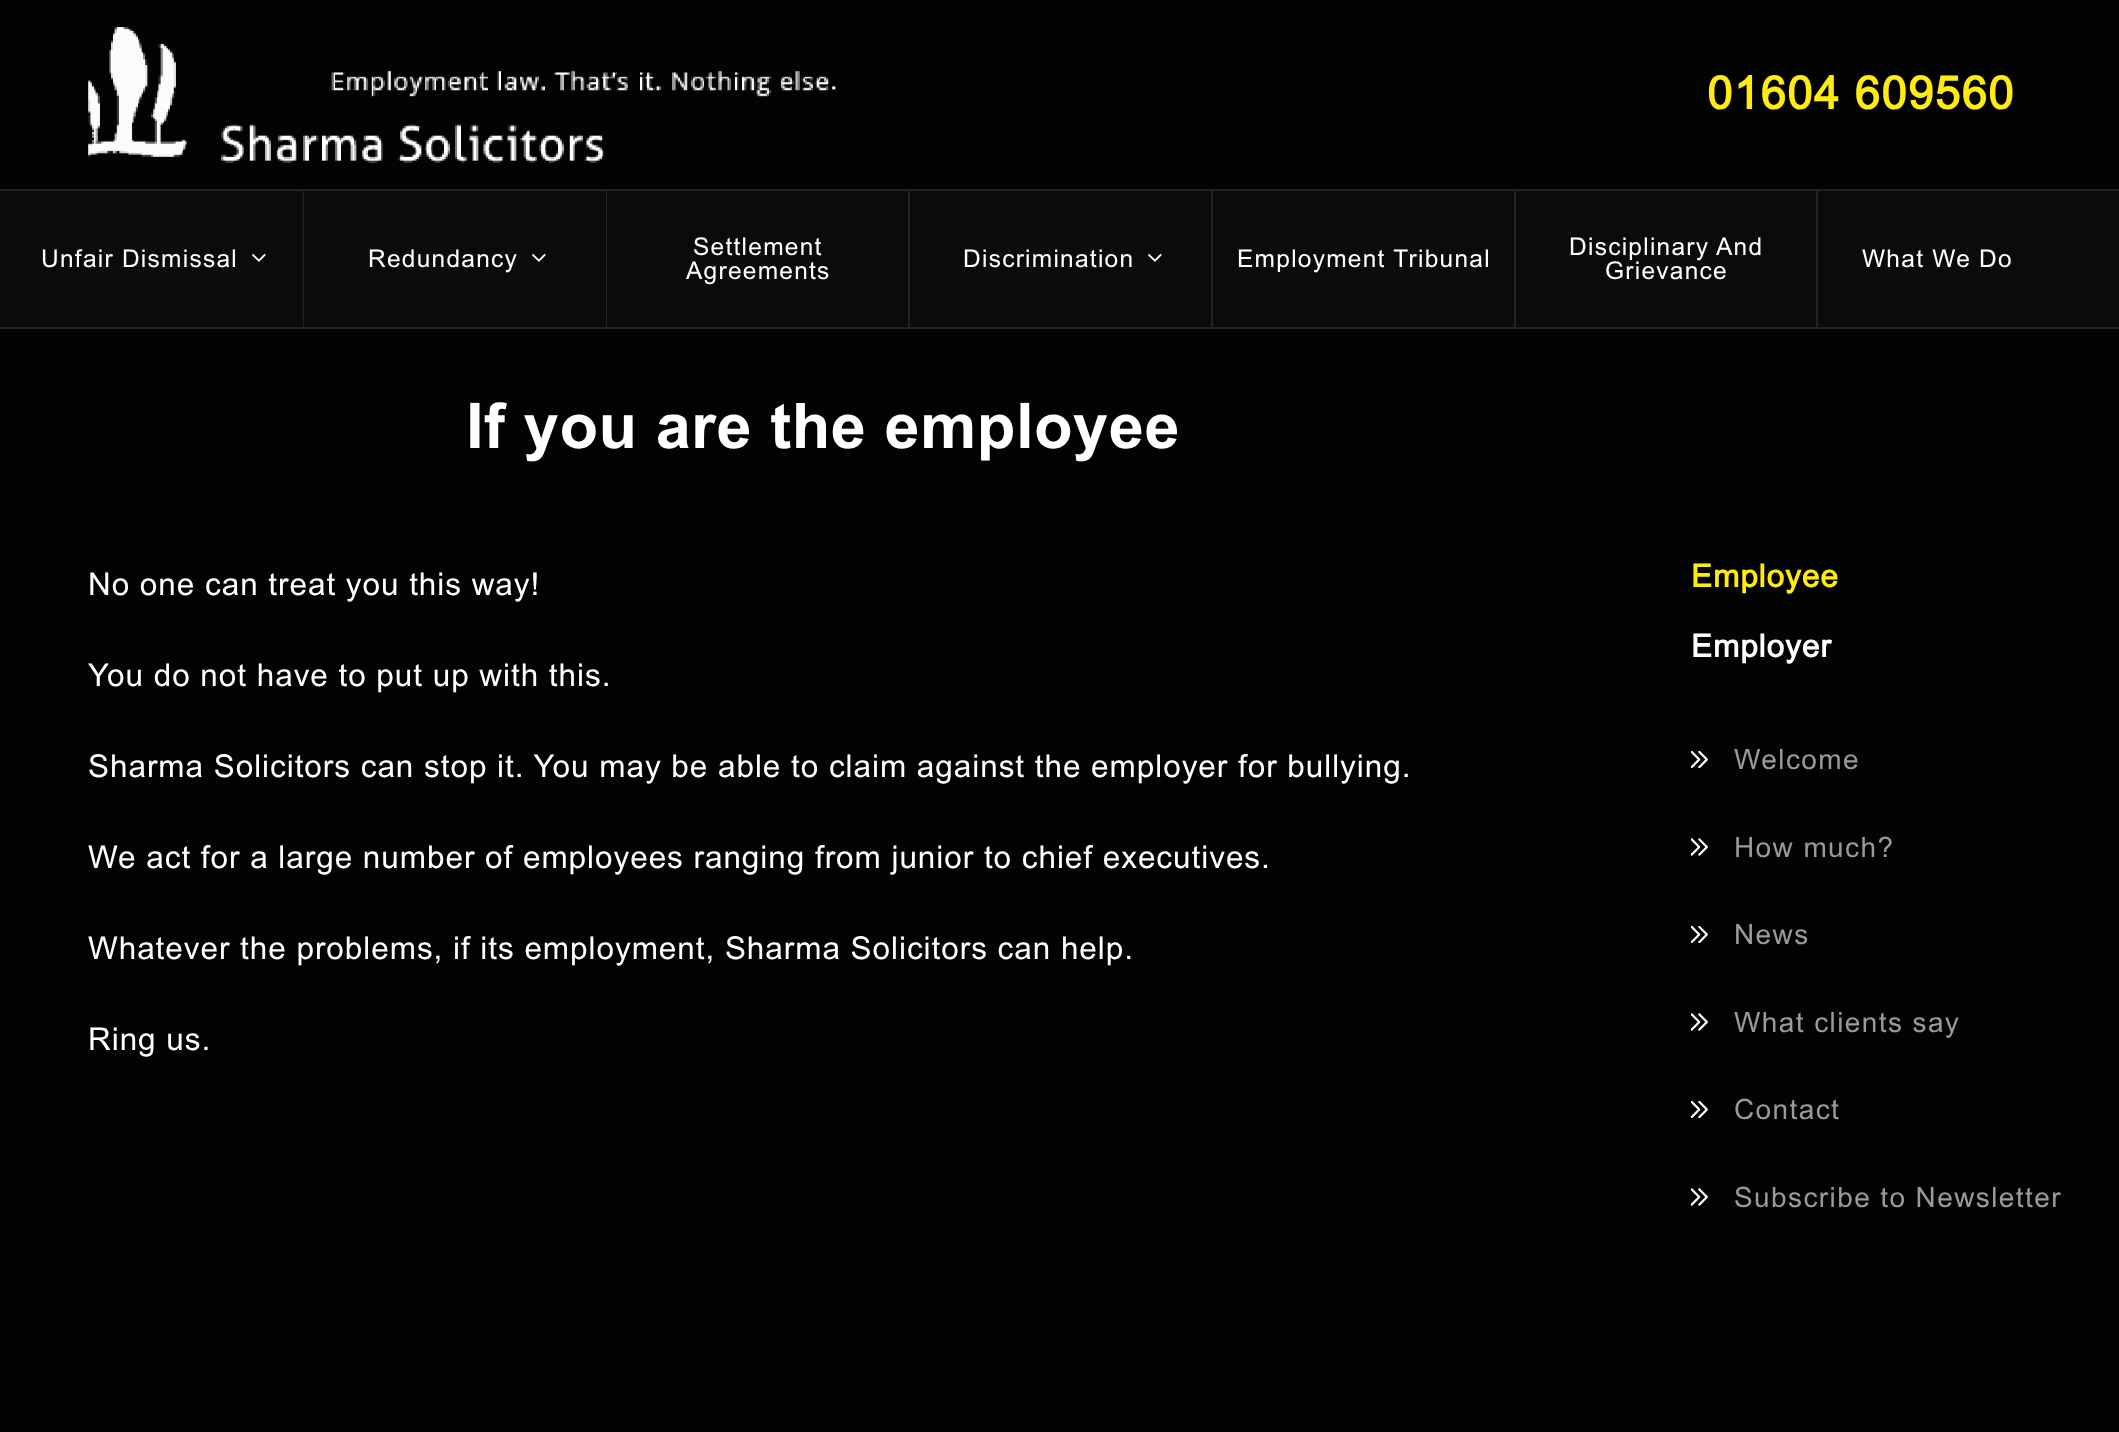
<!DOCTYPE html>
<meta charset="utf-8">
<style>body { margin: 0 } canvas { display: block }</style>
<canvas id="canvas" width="2119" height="1432"></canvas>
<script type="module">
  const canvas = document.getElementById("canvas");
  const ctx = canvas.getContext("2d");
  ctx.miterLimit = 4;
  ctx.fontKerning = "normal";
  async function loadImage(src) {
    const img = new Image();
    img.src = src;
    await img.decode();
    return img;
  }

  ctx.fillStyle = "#030303";
  ctx.fillRect(0, 0, 2119, 1432);
  ctx.drawImage(await loadImage("img1.png"), 88, 27, 748, 136);
  ctx.letterSpacing = "1.4px";
  ctx.font = "bold 45.5px 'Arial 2'";
  ctx.fillStyle = "#ffeb10";
  ctx.fillText("01604 609560", 1707, 109);
  ctx.fillStyle = "#0b0b0b";
  ctx.fillRect(0, 191, 303, 136);
  ctx.fillStyle = "#232323";
  ctx.fillRect(0, 189, 303, 2);
  ctx.fillRect(0, 327, 303, 2);
  ctx.letterSpacing = "1.25px";
  ctx.font = "24.5px Arial";
  ctx.fillStyle = "#ffffff";
  ctx.fillText("Unfair Dismissal", 41, 267);
  ctx.drawImage(await loadImage("img2.png"), 252, 254, 14, 8);
  ctx.fillStyle = "#0b0b0b";
  ctx.fillRect(303, 189, 1514, 140);
  ctx.fillStyle = "#232323";
  ctx.beginPath();
  ctx.moveTo(303, 189);
  ctx.lineTo(606, 189);
  ctx.lineTo(606, 191);
  ctx.lineTo(304, 191);
  ctx.closePath();
  ctx.fill();
  ctx.beginPath();
  ctx.moveTo(606, 329);
  ctx.lineTo(303, 329);
  ctx.lineTo(304, 327);
  ctx.lineTo(606, 327);
  ctx.closePath();
  ctx.fill();
  ctx.fillStyle = "rgba(255, 255, 255, 0.1)";
  ctx.beginPath();
  ctx.moveTo(303, 329);
  ctx.lineTo(303, 189);
  ctx.lineTo(304, 191);
  ctx.lineTo(304, 327);
  ctx.closePath();
  ctx.fill();
  ctx.fillStyle = "#ffffff";
  ctx.fillText("Redundancy", 368, 267);
  ctx.drawImage(await loadImage("img2.png"), 532, 254, 14, 8);
  ctx.fillStyle = "#232323";
  ctx.beginPath();
  ctx.moveTo(606, 189);
  ctx.lineTo(908, 189);
  ctx.lineTo(908, 191);
  ctx.lineTo(607, 191);
  ctx.closePath();
  ctx.fill();
  ctx.beginPath();
  ctx.moveTo(908, 329);
  ctx.lineTo(606, 329);
  ctx.lineTo(607, 327);
  ctx.lineTo(908, 327);
  ctx.closePath();
  ctx.fill();
  ctx.fillStyle = "rgba(255, 255, 255, 0.1)";
  ctx.beginPath();
  ctx.moveTo(606, 329);
  ctx.lineTo(606, 189);
  ctx.lineTo(607, 191);
  ctx.lineTo(607, 327);
  ctx.closePath();
  ctx.fill();
  ctx.fillStyle = "#ffffff";
  ctx.fillText("Settlement", 693, 255);
  ctx.fillText("Agreements", 686, 279);
  ctx.fillStyle = "#232323";
  ctx.beginPath();
  ctx.moveTo(908, 189);
  ctx.lineTo(1211, 189);
  ctx.lineTo(1211, 191);
  ctx.lineTo(910, 191);
  ctx.closePath();
  ctx.fill();
  ctx.beginPath();
  ctx.moveTo(1211, 329);
  ctx.lineTo(908, 329);
  ctx.lineTo(910, 327);
  ctx.lineTo(1211, 327);
  ctx.closePath();
  ctx.fill();
  ctx.fillStyle = "rgba(255, 255, 255, 0.1)";
  ctx.beginPath();
  ctx.moveTo(908, 329);
  ctx.lineTo(908, 189);
  ctx.lineTo(910, 191);
  ctx.lineTo(910, 327);
  ctx.closePath();
  ctx.fill();
  ctx.fillStyle = "#ffffff";
  ctx.fillText("Discrimination", 963, 267);
  ctx.drawImage(await loadImage("img2.png"), 1148, 254, 14, 8);
  ctx.fillStyle = "#232323";
  ctx.beginPath();
  ctx.moveTo(1211, 189);
  ctx.lineTo(1514, 189);
  ctx.lineTo(1514, 191);
  ctx.lineTo(1213, 191);
  ctx.closePath();
  ctx.fill();
  ctx.beginPath();
  ctx.moveTo(1514, 329);
  ctx.lineTo(1211, 329);
  ctx.lineTo(1213, 327);
  ctx.lineTo(1514, 327);
  ctx.closePath();
  ctx.fill();
  ctx.fillStyle = "rgba(255, 255, 255, 0.1)";
  ctx.beginPath();
  ctx.moveTo(1211, 329);
  ctx.lineTo(1211, 189);
  ctx.lineTo(1213, 191);
  ctx.lineTo(1213, 327);
  ctx.closePath();
  ctx.fill();
  ctx.fillStyle = "#ffffff";
  ctx.fillText("Employment Tribunal", 1237, 267);
  ctx.fillStyle = "#232323";
  ctx.beginPath();
  ctx.moveTo(1514, 189);
  ctx.lineTo(1816, 189);
  ctx.lineTo(1816, 191);
  ctx.lineTo(1516, 191);
  ctx.closePath();
  ctx.fill();
  ctx.beginPath();
  ctx.moveTo(1816, 329);
  ctx.lineTo(1514, 329);
  ctx.lineTo(1516, 327);
  ctx.lineTo(1816, 327);
  ctx.closePath();
  ctx.fill();
  ctx.fillStyle = "rgba(255, 255, 255, 0.1)";
  ctx.beginPath();
  ctx.moveTo(1514, 329);
  ctx.lineTo(1514, 189);
  ctx.lineTo(1516, 191);
  ctx.lineTo(1516, 327);
  ctx.closePath();
  ctx.fill();
  ctx.fillStyle = "#ffffff";
  ctx.fillText("Disciplinary And", 1569, 255);
  ctx.fillText("Grievance", 1605, 279);
  ctx.fillStyle = "#0b0b0b";
  ctx.fillRect(1817, 190, 302, 138);
  ctx.fillStyle = "#232323";
  ctx.beginPath();
  ctx.moveTo(1816, 189);
  ctx.lineTo(2119, 189);
  ctx.lineTo(2119, 191);
  ctx.lineTo(1818, 191);
  ctx.closePath();
  ctx.fill();
  ctx.beginPath();
  ctx.moveTo(2119, 329);
  ctx.lineTo(1816, 329);
  ctx.lineTo(1818, 327);
  ctx.lineTo(2119, 327);
  ctx.closePath();
  ctx.fill();
  ctx.fillStyle = "rgba(255, 255, 255, 0.1)";
  ctx.beginPath();
  ctx.moveTo(1816, 329);
  ctx.lineTo(1816, 189);
  ctx.lineTo(1818, 191);
  ctx.lineTo(1818, 327);
  ctx.closePath();
  ctx.fill();
  ctx.fillStyle = "#ffffff";
  ctx.fillText("What We Do", 1862, 267);
  ctx.letterSpacing = "0.6px";
  ctx.font = "bold 63px Arial";
  ctx.fillText("If you are the employee", 466, 448);
  ctx.letterSpacing = "0.95px";
  ctx.font = "31.5px Arial";
  ctx.fillText("No one can treat you this way!", 88, 595);
  ctx.fillText("You do not have to put up with this.", 88, 686);
  ctx.fillText("Sharma Solicitors can stop it. You may be able to claim against the employer for bullying.", 88, 777);
  ctx.fillText("We act for a large number of employees ranging from junior to chief executives.", 88, 868);
  ctx.fillText("Whatever the problems, if its employment, Sharma Solicitors can help.", 88, 959);
  ctx.fillText("Ring us.", 88, 1050);
  ctx.font = "bold 31.5px 'Arial 2'";
  ctx.fillStyle = "#ffeb10";
  ctx.fillText("Employee", 1691, 587);
  ctx.fillStyle = "#ffffff";
  ctx.fillText("Employer", 1691, 657);
  ctx.drawImage(await loadImage("img3.png"), 1691, 751, 17, 17);
  ctx.letterSpacing = "1.4px";
  ctx.font = "28px Arial";
  ctx.fillStyle = "#9a9a9a";
  ctx.fillText("Welcome", 1734, 769);
  ctx.drawImage(await loadImage("img4.png"), 1691, 838, 17, 18);
  ctx.fillText("How much?", 1734, 857);
  ctx.drawImage(await loadImage("img3.png"), 1691, 926, 17, 17);
  ctx.fillText("News", 1734, 944);
  ctx.drawImage(await loadImage("img4.png"), 1691, 1013, 17, 18);
  ctx.fillText("What clients say", 1734, 1032);
  ctx.drawImage(await loadImage("img3.png"), 1691, 1101, 17, 17);
  ctx.fillText("Contact", 1734, 1119);
  ctx.drawImage(await loadImage("img4.png"), 1691, 1188, 17, 18);
  ctx.fillText("Subscribe to Newsletter", 1734, 1207);
</script>
